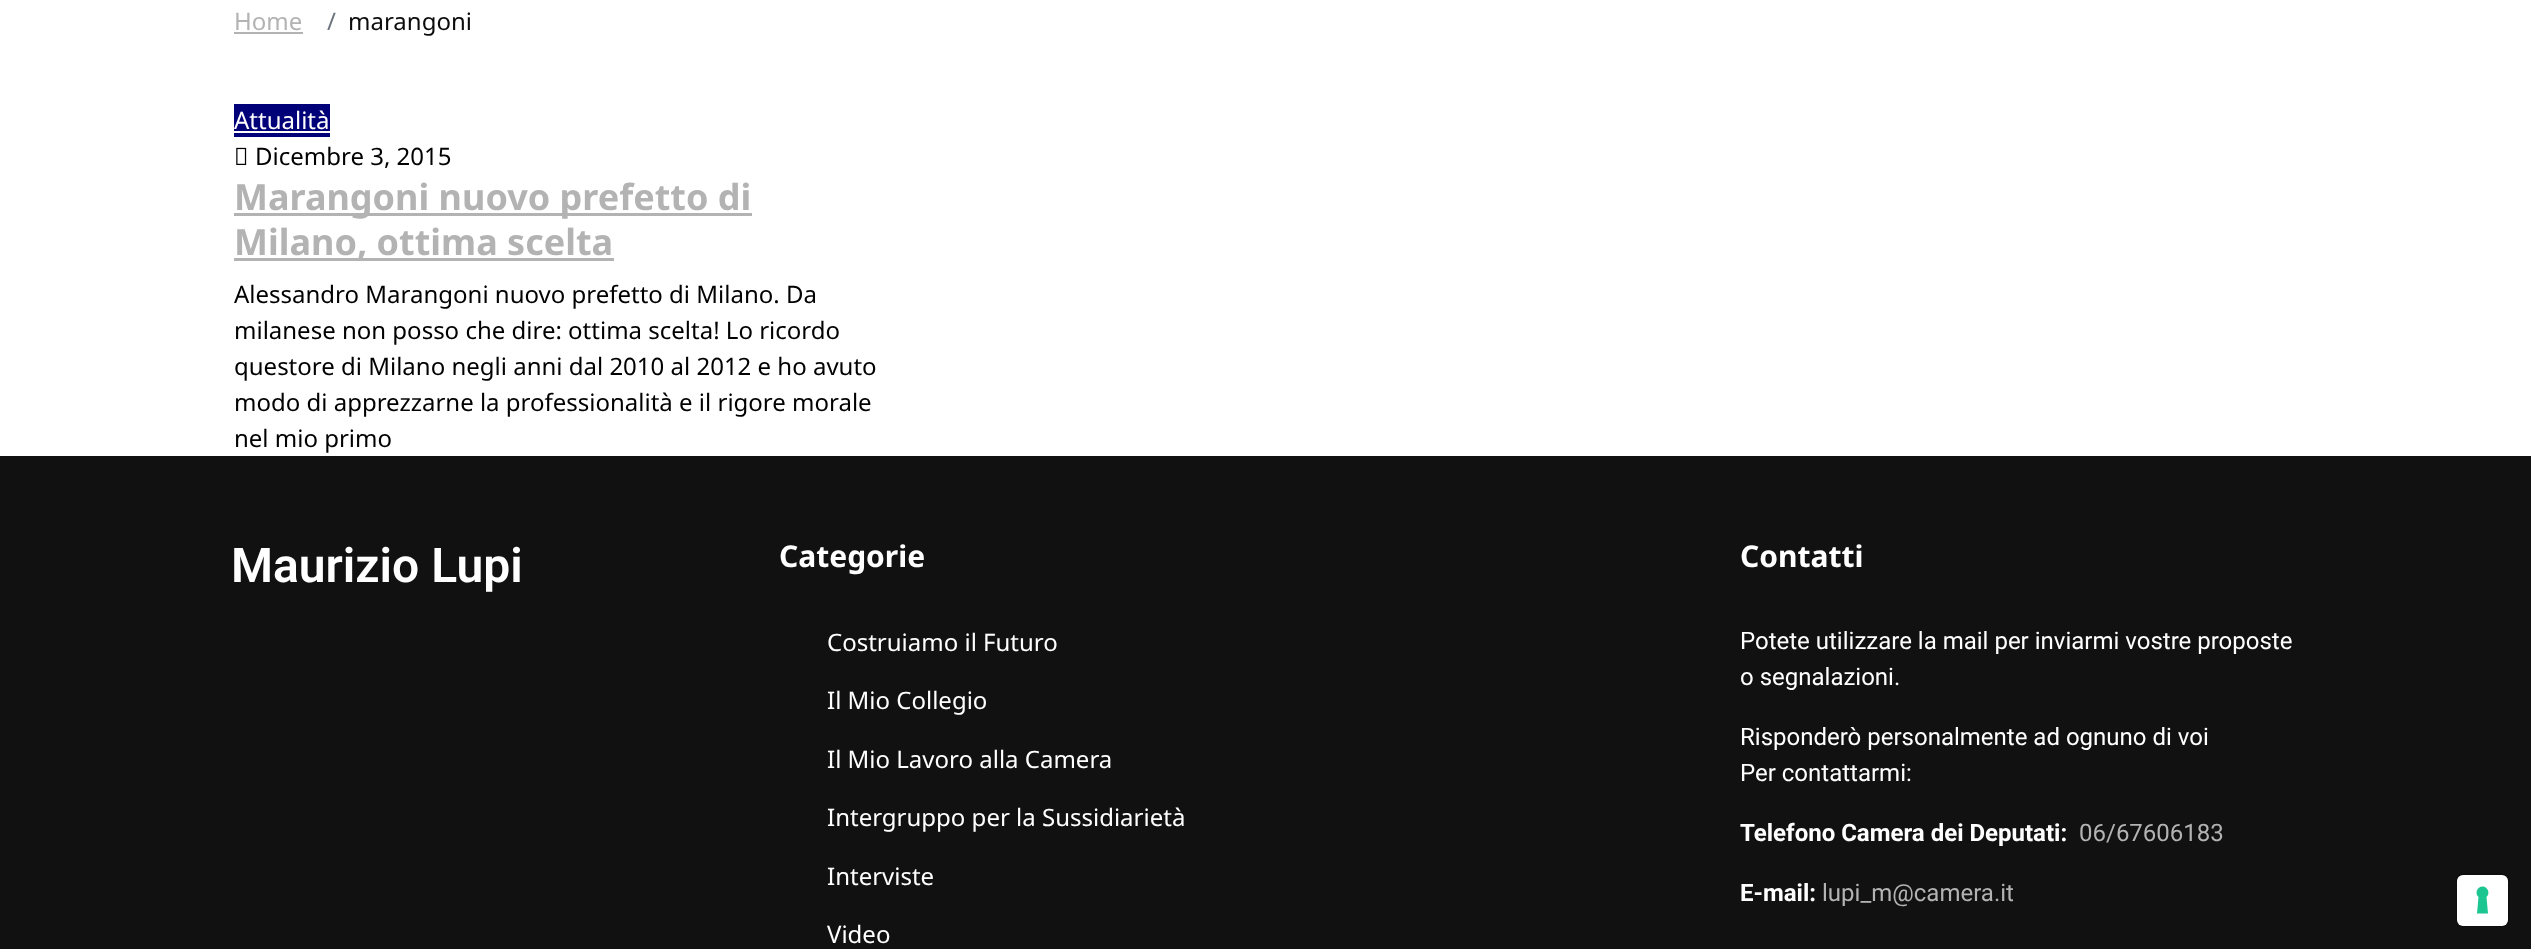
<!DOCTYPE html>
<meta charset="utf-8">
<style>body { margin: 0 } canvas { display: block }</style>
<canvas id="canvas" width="2531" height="949"></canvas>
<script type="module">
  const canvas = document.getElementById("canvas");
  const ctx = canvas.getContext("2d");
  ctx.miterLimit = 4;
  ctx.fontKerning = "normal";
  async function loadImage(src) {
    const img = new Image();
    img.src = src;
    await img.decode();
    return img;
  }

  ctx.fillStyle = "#ffffff";
  ctx.fillRect(0, 0, 2531, 949);
  ctx.font = "24px Noto Sans";
  ctx.fillStyle = "#b3b3b3";
  ctx.fillText("Home", 234, 30);
  ctx.fillRect(234, 32, 69, 2);
  ctx.fillStyle = "#6c757d";
  ctx.fillText("/", 327, 30);
  ctx.fillStyle = "#0c0c0c";
  ctx.fillText("marangoni", 348, 30);
  ctx.fillStyle = "#000179";
  ctx.fillRect(234, 104, 96, 33);
  ctx.fillStyle = "#ffffff";
  ctx.fillText("Attualità", 234, 129);
  ctx.fillRect(234, 131, 96, 2);
  ctx.drawImage(await loadImage("img1.png"), 236, 147, 11, 18);
  ctx.fillStyle = "#000000";
  ctx.fillText("Dicembre 3, 2015", 255, 165);
  ctx.fillStyle = "#b3b3b3";
  ctx.fillRect(234, 213, 518, 3);
  ctx.font = "bold 36px Noto Sans";
  ctx.fillText("Marangoni nuovo prefetto di", 234, 210);
  ctx.fillRect(234, 258, 380, 3);
  ctx.fillText("Milano, ottima scelta", 234, 255);
  ctx.font = "24px Noto Sans";
  ctx.fillStyle = "#000000";
  ctx.fillText("Alessandro Marangoni nuovo prefetto di Milano. Da", 234, 303);
  ctx.fillText("milanese non posso che dire: ottima scelta! Lo ricordo", 234, 339);
  ctx.fillText("questore di Milano negli anni dal 2010 al 2012 e ho avuto", 234, 375);
  ctx.fillText("modo di apprezzarne la professionalità e il rigore morale", 234, 411);
  ctx.fillText("nel mio primo", 234, 447);
  ctx.fillStyle = "#111111";
  ctx.fillRect(0, 456, 2531, 493);
  ctx.font = "600 48px Roboto";
  ctx.fillStyle = "#ffffff";
  ctx.fillText("Maurizio Lupi", 231, 582);
  ctx.font = "bold 30px Noto Sans";
  ctx.fillText("Categorie", 779, 567);
  ctx.font = "24px Noto Sans";
  ctx.fillText("Costruiamo il Futuro", 827, 651);
  ctx.fillText("Il Mio Collegio", 827, 709);
  ctx.fillText("Il Mio Lavoro alla Camera", 827, 768);
  ctx.fillText("Intergruppo per la Sussidiarietà", 827, 826);
  ctx.fillText("Interviste", 827, 885);
  ctx.fillText("Video", 827, 943);
  ctx.font = "bold 30px Noto Sans";
  ctx.fillText("Contatti", 1740, 567);
  ctx.font = "24px Roboto";
  ctx.fillText("Potete utilizzare la mail per inviarmi vostre proposte", 1740, 649);
  ctx.fillText("o segnalazioni.", 1740, 685);
  ctx.fillText("Risponderò personalmente ad ognuno di voi", 1740, 745);
  ctx.fillText("Per contattarmi:", 1740, 781);
  ctx.font = "bold 24px Roboto";
  ctx.fillText("Telefono Camera dei Deputati:", 1740, 841);
  ctx.font = "24px Roboto";
  ctx.fillStyle = "#b3b3b3";
  ctx.fillText("06/67606183", 2079, 841);
  ctx.font = "bold 24px Roboto";
  ctx.fillStyle = "#ffffff";
  ctx.fillText("E-mail:", 1740, 901);
  ctx.font = "24px Roboto";
  ctx.fillStyle = "#b3b3b3";
  ctx.fillText("lupi_m@camera.it", 1822, 901);
  ctx.beginPath();
  ctx.roundRect(2457, 874, 52, 52, 7);
  ctx.strokeStyle = "#0e0e0e";
  ctx.lineWidth = 2;
  ctx.stroke();
  ctx.fillStyle = "#ffffff";
  ctx.beginPath();
  ctx.roundRect(2457, 875, 51, 51, 6);
  ctx.fill();
  ctx.fillStyle = "#1cc691";
  ctx.beginPath();
  ctx.moveTo(2482.5, 886.5);
  ctx.bezierCurveTo(2488, 886.5, 2490.5, 893.5, 2486.5, 897);
  ctx.lineTo(2488, 913.5);
  ctx.lineTo(2477, 913.5);
  ctx.lineTo(2478.5, 897);
  ctx.bezierCurveTo(2474.5, 893.5, 2477, 886.5, 2482.5, 886.5);
  ctx.closePath();
  ctx.fill("evenodd");
</script>
